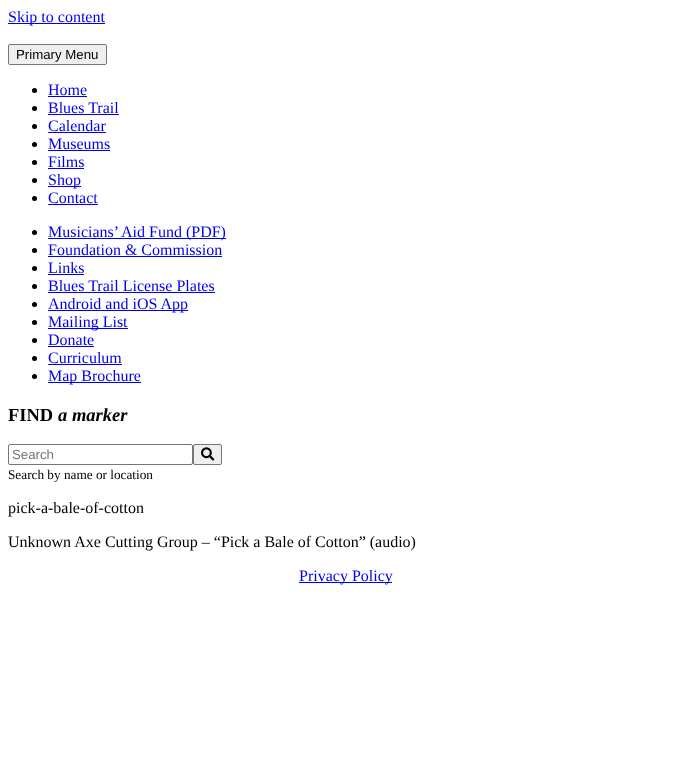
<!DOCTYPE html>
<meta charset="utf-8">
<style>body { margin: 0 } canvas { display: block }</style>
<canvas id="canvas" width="691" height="767"></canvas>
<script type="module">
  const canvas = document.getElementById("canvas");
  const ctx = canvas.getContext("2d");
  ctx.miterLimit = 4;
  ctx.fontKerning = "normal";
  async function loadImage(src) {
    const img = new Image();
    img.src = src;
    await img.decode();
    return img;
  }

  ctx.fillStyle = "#ffffff";
  ctx.fillRect(0, 0, 691, 767);
  ctx.fillStyle = "#0000ee";
  ctx.fillRect(8, 23, 97, 1);
  ctx.font = "16px Liberation Serif";
  ctx.fillText("Skip to content", 8, 22);
  ctx.fillStyle = "#efefef";
  ctx.beginPath();
  ctx.roundRect(8.5, 44.5, 98, 20, 1.5);
  ctx.fill();
  ctx.strokeStyle = "#767676";
  ctx.stroke();
  ctx.font = "13.25px Liberation Sans";
  ctx.fillStyle = "#000000";
  ctx.fillText("Primary Menu", 16, 59);
  ctx.beginPath();
  ctx.arc(34.5, 90.5, 2.5, 0, Math.PI * 2);
  ctx.fill();
  ctx.font = "16px Liberation Serif";
  ctx.fillStyle = "#0000ee";
  ctx.fillText("Home", 48, 95);
  ctx.fillRect(48, 96, 39, 1);
  ctx.fillStyle = "#000000";
  ctx.beginPath();
  ctx.arc(34.5, 108.5, 2.5, 0, Math.PI * 2);
  ctx.fill();
  ctx.fillStyle = "#0000ee";
  ctx.fillText("Blues Trail", 48, 113);
  ctx.fillRect(48, 114, 71, 1);
  ctx.fillStyle = "#000000";
  ctx.beginPath();
  ctx.arc(34.5, 126.5, 2.5, 0, Math.PI * 2);
  ctx.fill();
  ctx.fillStyle = "#0000ee";
  ctx.fillText("Calendar", 48, 131);
  ctx.fillRect(48, 132, 58, 1);
  ctx.fillStyle = "#000000";
  ctx.beginPath();
  ctx.arc(34.5, 144.5, 2.5, 0, Math.PI * 2);
  ctx.fill();
  ctx.fillStyle = "#0000ee";
  ctx.fillText("Museums", 48, 149);
  ctx.fillRect(48, 150, 62, 1);
  ctx.fillStyle = "#000000";
  ctx.beginPath();
  ctx.arc(34.5, 162.5, 2.5, 0, Math.PI * 2);
  ctx.fill();
  ctx.fillStyle = "#0000ee";
  ctx.fillText("Films", 48, 167);
  ctx.fillRect(48, 168, 36, 1);
  ctx.fillStyle = "#000000";
  ctx.beginPath();
  ctx.arc(34.5, 180.5, 2.5, 0, Math.PI * 2);
  ctx.fill();
  ctx.fillStyle = "#0000ee";
  ctx.fillRect(48, 186, 33, 1);
  ctx.fillText("Shop", 48, 185);
  ctx.fillStyle = "#000000";
  ctx.beginPath();
  ctx.arc(34.5, 198.5, 2.5, 0, Math.PI * 2);
  ctx.fill();
  ctx.fillStyle = "#0000ee";
  ctx.fillText("Contact", 48, 203);
  ctx.fillRect(48, 204, 50, 1);
  ctx.fillStyle = "#000000";
  ctx.beginPath();
  ctx.arc(34.5, 232.5, 2.5, 0, Math.PI * 2);
  ctx.fill();
  ctx.fillStyle = "#0000ee";
  ctx.fillRect(48, 238, 178, 1);
  ctx.fillText("Musicians’ Aid Fund (PDF)", 48, 237);
  ctx.fillStyle = "#000000";
  ctx.beginPath();
  ctx.arc(34.5, 250.5, 2.5, 0, Math.PI * 2);
  ctx.fill();
  ctx.fillStyle = "#0000ee";
  ctx.fillText("Foundation & Commission", 48, 255);
  ctx.fillRect(48, 256, 174, 1);
  ctx.fillStyle = "#000000";
  ctx.beginPath();
  ctx.arc(34.5, 268.5, 2.5, 0, Math.PI * 2);
  ctx.fill();
  ctx.fillStyle = "#0000ee";
  ctx.fillText("Links", 48, 273);
  ctx.fillRect(48, 274, 36, 1);
  ctx.fillStyle = "#000000";
  ctx.beginPath();
  ctx.arc(34.5, 286.5, 2.5, 0, Math.PI * 2);
  ctx.fill();
  ctx.fillStyle = "#0000ee";
  ctx.fillText("Blues Trail License Plates", 48, 291);
  ctx.fillRect(48, 292, 167, 1);
  ctx.fillStyle = "#000000";
  ctx.beginPath();
  ctx.arc(34.5, 304.5, 2.5, 0, Math.PI * 2);
  ctx.fill();
  ctx.fillStyle = "#0000ee";
  ctx.fillRect(48, 310, 140, 1);
  ctx.fillText("Android and iOS App", 48, 309);
  ctx.fillStyle = "#000000";
  ctx.beginPath();
  ctx.arc(34.5, 322.5, 2.5, 0, Math.PI * 2);
  ctx.fill();
  ctx.fillStyle = "#0000ee";
  ctx.fillRect(48, 328, 80, 1);
  ctx.fillText("Mailing List", 48, 327);
  ctx.fillStyle = "#000000";
  ctx.beginPath();
  ctx.arc(34.5, 340.5, 2.5, 0, Math.PI * 2);
  ctx.fill();
  ctx.fillStyle = "#0000ee";
  ctx.fillText("Donate", 48, 345);
  ctx.fillRect(48, 346, 46, 1);
  ctx.fillStyle = "#000000";
  ctx.beginPath();
  ctx.arc(34.5, 358.5, 2.5, 0, Math.PI * 2);
  ctx.fill();
  ctx.fillStyle = "#0000ee";
  ctx.fillText("Curriculum", 48, 363);
  ctx.fillRect(48, 364, 74, 1);
  ctx.fillStyle = "#000000";
  ctx.beginPath();
  ctx.arc(34.5, 376.5, 2.5, 0, Math.PI * 2);
  ctx.fill();
  ctx.fillStyle = "#0000ee";
  ctx.fillRect(48, 382, 93, 1);
  ctx.fillText("Map Brochure", 48, 381);
  ctx.font = "bold 18.5px Liberation Serif";
  ctx.fillStyle = "#000000";
  ctx.fillText("FIND", 8, 421);
  ctx.font = "italic bold 18.5px Liberation Serif";
  ctx.fillText("a marker", 58, 421);
  ctx.beginPath();
  ctx.roundRect(8.5, 444.5, 184, 20, 1.5);
  ctx.stroke();
  ctx.font = "13.25px Liberation Sans";
  ctx.fillStyle = "#757575";
  ctx.fillText("Search", 12, 459);
  ctx.fillStyle = "#efefef";
  ctx.beginPath();
  ctx.roundRect(193.5, 444.5, 28, 20, 1.5);
  ctx.fill();
  ctx.stroke();
  ctx.drawImage(await loadImage("img1.png"), 201, 447, 14, 14);
  ctx.font = "13.25px Liberation Serif";
  ctx.fillStyle = "#000000";
  ctx.fillText("Search by name or location", 8, 479);
  ctx.font = "16px Liberation Serif";
  ctx.fillText("pick-a-bale-of-cotton", 8, 513);
  ctx.fillText("Unknown Axe Cutting Group – “Pick a Bale of Cotton” (audio)", 8, 547);
  ctx.fillStyle = "#0000ee";
  ctx.fillRect(299, 582, 93, 1);
  ctx.fillText("Privacy Policy", 299, 581);
</script>
